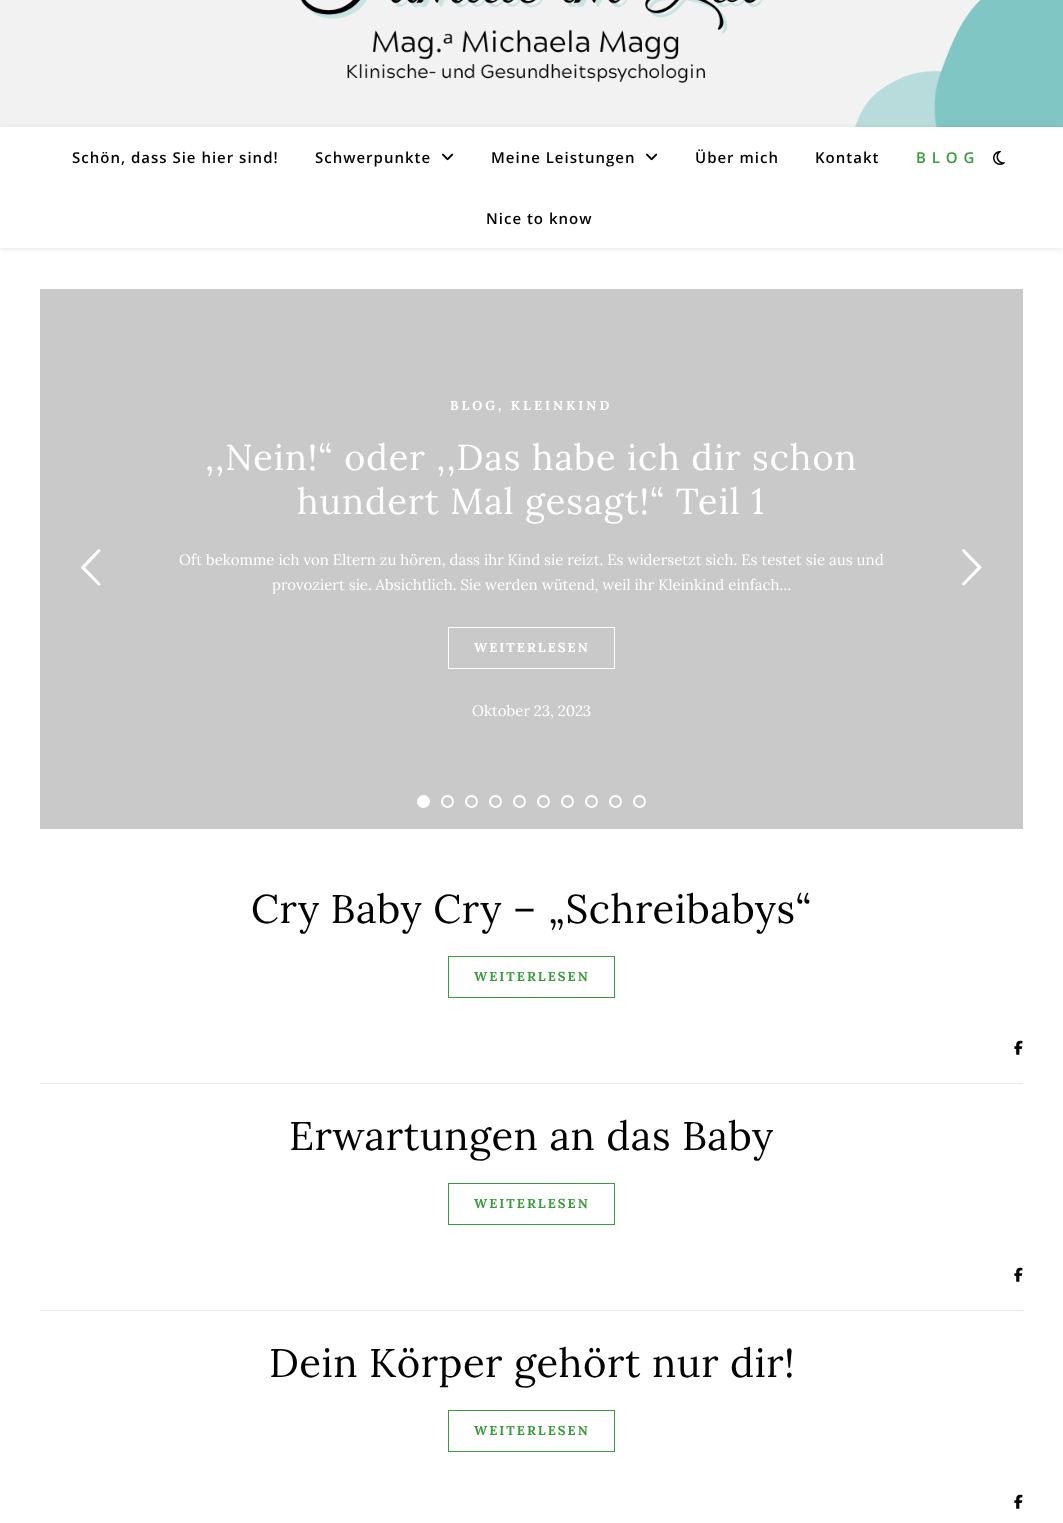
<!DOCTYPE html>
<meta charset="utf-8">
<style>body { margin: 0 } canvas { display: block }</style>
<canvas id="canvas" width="1063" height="1523"></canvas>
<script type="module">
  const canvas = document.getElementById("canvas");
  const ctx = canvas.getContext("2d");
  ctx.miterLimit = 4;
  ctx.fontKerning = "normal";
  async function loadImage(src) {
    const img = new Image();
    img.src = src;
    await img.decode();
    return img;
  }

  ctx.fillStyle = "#ffffff";
  ctx.fillRect(0, 0, 1063, 1523);
  ctx.drawImage(await loadImage("img1.png"), 0, 0, 1063, 127);
  ctx.save();
  ctx.beginPath();
  ctx.moveTo(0, 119);
  ctx.lineTo(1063, 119);
  ctx.lineTo(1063, 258);
  ctx.lineTo(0, 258);
  ctx.closePath();
  ctx.moveTo(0, 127);
  ctx.lineTo(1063, 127);
  ctx.lineTo(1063, 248);
  ctx.lineTo(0, 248);
  ctx.closePath();
  ctx.clip("evenodd");
  ctx.fillStyle = "rgba(0, 0, 0, 0.1)";
  ctx.filter = "blur(2.5px)";
  ctx.beginPath();
  ctx.rect(0, 128, 1063, 121);
  ctx.fill();
  ctx.filter = "none";
  ctx.restore();
  ctx.letterSpacing = "1px";
  ctx.font = "600 15px Open Sans";
  ctx.fillStyle = "#030303";
  ctx.fillText("Schön, dass Sie hier sind!", 72, 163);
  ctx.fillText("Schwerpunkte", 315, 163);
  ctx.drawImage(await loadImage("img2.png"), 442, 153, 12, 8);
  ctx.fillText("Meine Leistungen", 491, 163);
  ctx.drawImage(await loadImage("img2.png"), 646, 153, 12, 8);
  ctx.fillText("Über mich", 695, 163);
  ctx.fillText("Kontakt", 815, 163);
  ctx.fillStyle = "#399b3c";
  ctx.fillText("B L O G", 916, 163);
  ctx.fillStyle = "#030303";
  ctx.fillText("Nice to know", 486, 224);
  ctx.drawImage(await loadImage("img3.png"), 993, 151, 12, 14);
  ctx.fillStyle = "#c9c9c9";
  ctx.fillRect(40, 289, 983, 540);
  ctx.fillStyle = "#ffffff";
  ctx.beginPath();
  ctx.moveTo(100, 583);
  ctx.lineTo(100.5, 584);
  ctx.bezierCurveTo(99.5, 588, 95.5, 582.5, 95, 582);
  ctx.lineTo(81, 568);
  ctx.lineTo(81, 567);
  ctx.lineTo(98, 549.5);
  ctx.lineTo(99, 549);
  ctx.bezierCurveTo(103, 550, 98, 553.5, 97.5, 554.5);
  ctx.lineTo(85, 567.5);
  ctx.closePath();
  ctx.fill();
  ctx.letterSpacing = "3px";
  ctx.font = "bold 13px Lora";
  ctx.fillText("BLOG, KLEINKIND", 450, 410);
  ctx.letterSpacing = "1px";
  ctx.font = "36px Lora";
  ctx.fillText(",,Nein!“ oder ,,Das habe ich dir schon", 205, 470);
  ctx.fillText("hundert Mal gesagt!“ Teil 1", 297, 514);
  ctx.letterSpacing = "0px";
  ctx.font = "15px Lora";
  ctx.fillText("Oft bekomme ich von Eltern zu hören, dass ihr Kind sie reizt. Es widersetzt sich. Es testet sie aus und", 179, 565);
  ctx.fillText("provoziert sie. Absichtlich. Sie werden wütend, weil ihr Kleinkind einfach…", 272, 590);
  ctx.strokeStyle = "#ffffff";
  ctx.strokeRect(448.5, 627.5, 166, 41);
  ctx.letterSpacing = "2px";
  ctx.font = "bold 13px Lora";
  ctx.fillText("WEITERLESEN", 474, 652);
  ctx.letterSpacing = "0px";
  ctx.font = "15px Lora";
  ctx.fillText("Oktober 23, 2023", 472, 716);
  ctx.beginPath();
  ctx.moveTo(962.5, 583);
  ctx.lineTo(977.5, 567.5);
  ctx.lineTo(965, 554.5);
  ctx.bezierCurveTo(964.5, 553.5, 960, 550, 963.5, 549);
  ctx.lineTo(964.5, 549.5);
  ctx.lineTo(981.5, 567);
  ctx.lineTo(981.5, 568);
  ctx.lineTo(967.5, 582);
  ctx.bezierCurveTo(967, 582.5, 963, 588, 962, 584);
  ctx.closePath();
  ctx.fill();
  ctx.beginPath();
  ctx.arc(423.5, 801.5, 5.5, 0, Math.PI * 2);
  ctx.fill();
  ctx.lineWidth = 2;
  ctx.stroke();
  ctx.beginPath();
  ctx.arc(447.5, 801.5, 5.5, 0, Math.PI * 2);
  ctx.stroke();
  ctx.beginPath();
  ctx.arc(471.5, 801.5, 5.5, 0, Math.PI * 2);
  ctx.stroke();
  ctx.beginPath();
  ctx.arc(495.5, 801.5, 5.5, 0, Math.PI * 2);
  ctx.stroke();
  ctx.beginPath();
  ctx.arc(519.5, 801.5, 5.5, 0, Math.PI * 2);
  ctx.stroke();
  ctx.beginPath();
  ctx.arc(543.5, 801.5, 5.5, 0, Math.PI * 2);
  ctx.stroke();
  ctx.beginPath();
  ctx.arc(567.5, 801.5, 5.5, 0, Math.PI * 2);
  ctx.stroke();
  ctx.beginPath();
  ctx.arc(591.5, 801.5, 5.5, 0, Math.PI * 2);
  ctx.stroke();
  ctx.beginPath();
  ctx.arc(615.5, 801.5, 5.5, 0, Math.PI * 2);
  ctx.stroke();
  ctx.beginPath();
  ctx.arc(639.5, 801.5, 5.5, 0, Math.PI * 2);
  ctx.stroke();
  ctx.letterSpacing = "0.5px";
  ctx.font = "40px Lora";
  ctx.fillStyle = "#030303";
  ctx.fillText("Cry Baby Cry – „Schreibabys“", 251, 923);
  ctx.strokeStyle = "#399b3c";
  ctx.lineWidth = 1;
  ctx.strokeRect(448.5, 956.5, 166, 41);
  ctx.letterSpacing = "2px";
  ctx.font = "bold 13px Lora";
  ctx.fillStyle = "#399b3c";
  ctx.fillText("WEITERLESEN", 474, 981);
  ctx.fillStyle = "#e8e8e8";
  ctx.fillRect(40, 1083, 983, 1);
  ctx.drawImage(await loadImage("img4.png"), 1014, 1040, 9, 15);
  ctx.letterSpacing = "0.5px";
  ctx.font = "40px Lora";
  ctx.fillStyle = "#030303";
  ctx.fillText("Erwartungen an das Baby", 289, 1150);
  ctx.strokeRect(448.5, 1183.5, 166, 41);
  ctx.letterSpacing = "2px";
  ctx.font = "bold 13px Lora";
  ctx.fillStyle = "#399b3c";
  ctx.fillText("WEITERLESEN", 474, 1208);
  ctx.fillStyle = "#e8e8e8";
  ctx.fillRect(40, 1310, 983, 1);
  ctx.drawImage(await loadImage("img4.png"), 1014, 1267, 9, 15);
  ctx.letterSpacing = "0.5px";
  ctx.font = "40px Lora";
  ctx.fillStyle = "#030303";
  ctx.fillText("Dein Körper gehört nur dir!", 269, 1377);
  ctx.strokeRect(448.5, 1410.5, 166, 41);
  ctx.letterSpacing = "2px";
  ctx.font = "bold 13px Lora";
  ctx.fillStyle = "#399b3c";
  ctx.fillText("WEITERLESEN", 474, 1435);
  ctx.drawImage(await loadImage("img4.png"), 1014, 1494, 9, 15);
</script>
